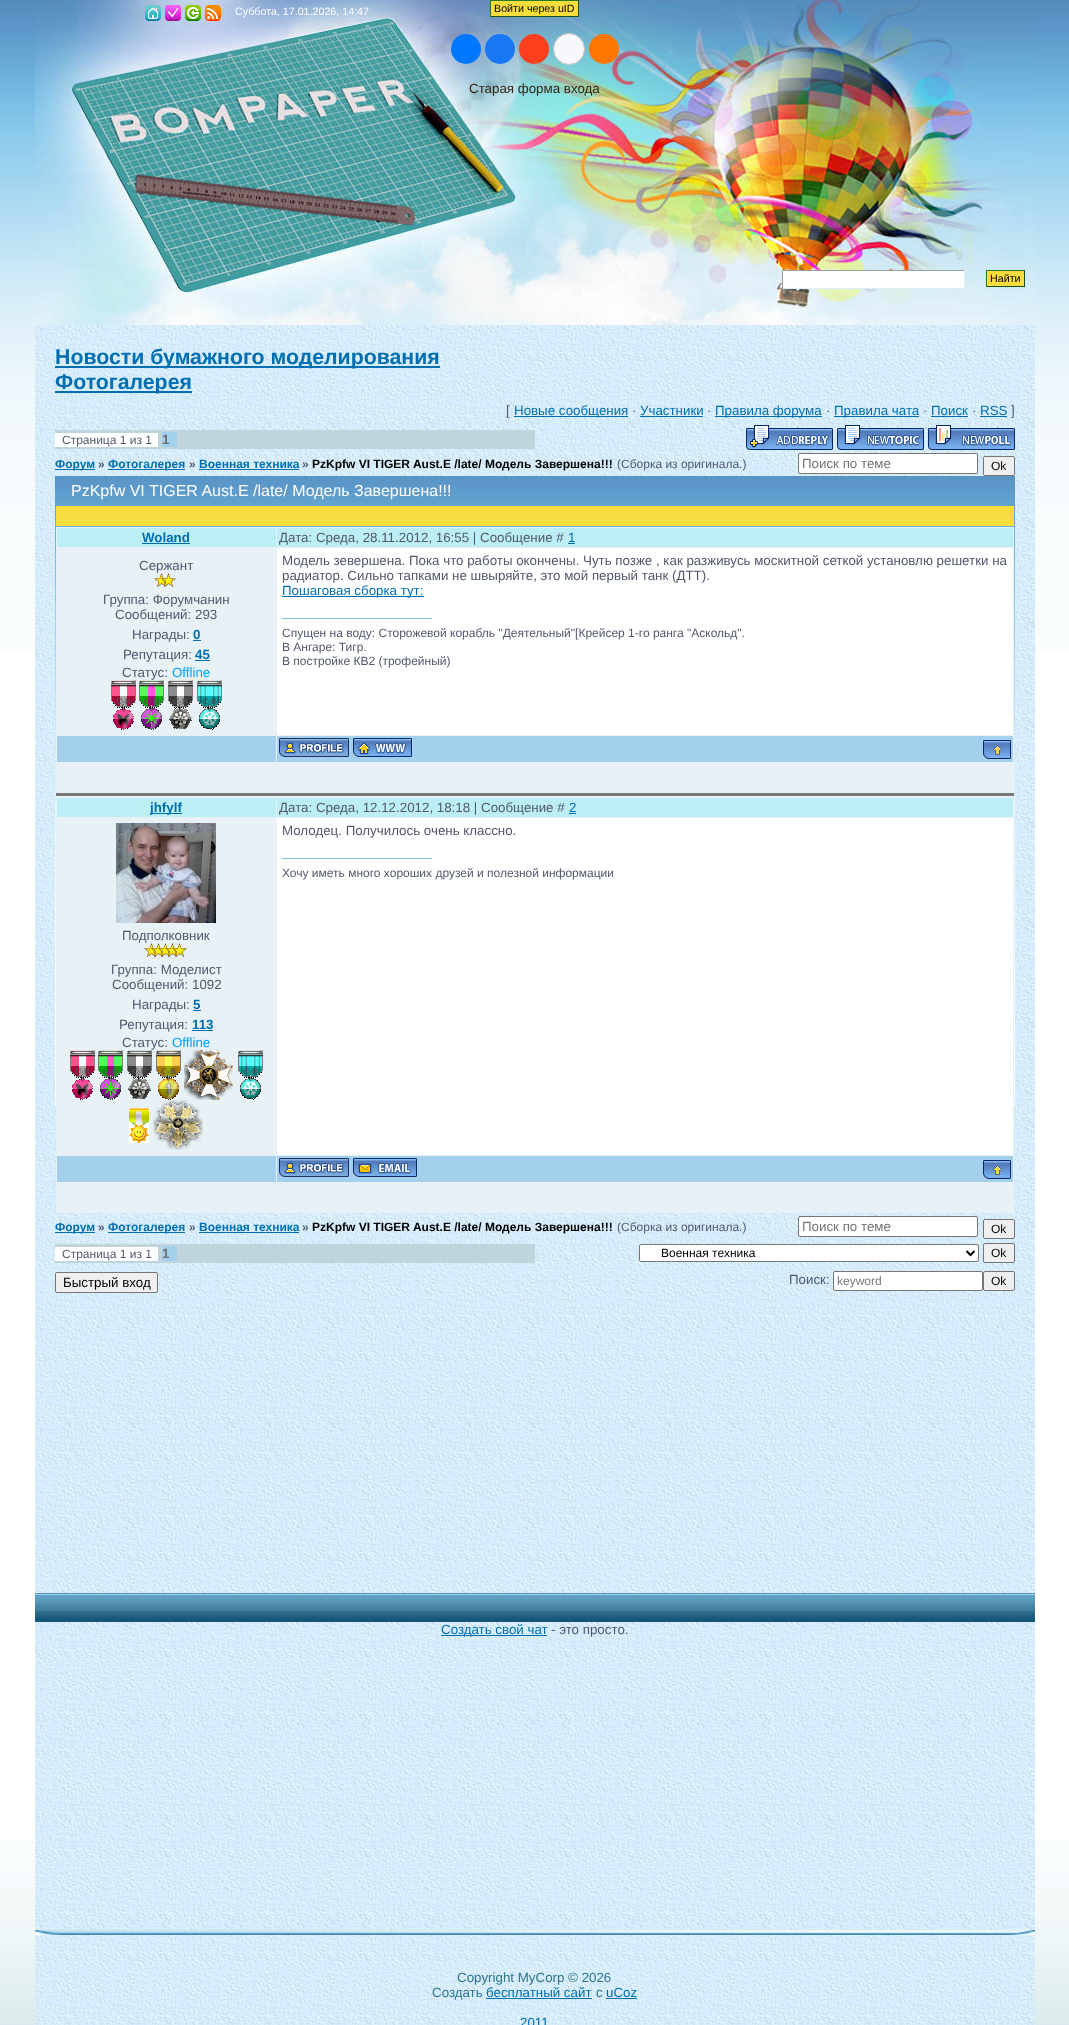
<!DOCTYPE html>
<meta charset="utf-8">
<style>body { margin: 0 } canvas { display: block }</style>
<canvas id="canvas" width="1069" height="2025"></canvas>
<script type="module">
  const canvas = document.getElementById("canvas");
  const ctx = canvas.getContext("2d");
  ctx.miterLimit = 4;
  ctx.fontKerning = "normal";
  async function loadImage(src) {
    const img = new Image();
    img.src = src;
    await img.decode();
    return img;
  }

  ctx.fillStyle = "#ffffff";
  ctx.fillRect(0, 0, 1069, 2025);
  ctx.drawImage(await loadImage("img1.png"), 0, 0, 1069, 650);
  ctx.drawImage(await loadImage("img2.png"), 0, 1840, 1069, 185);
  ctx.drawImage(await loadImage("img3.png"), 35, 0, 1000, 325);
  ctx.drawImage(await loadImage("img4.png"), 145, 5, 16, 16);
  ctx.drawImage(await loadImage("img5.png"), 165, 5, 16, 16);
  ctx.drawImage(await loadImage("img6.png"), 185, 5, 16, 16);
  ctx.drawImage(await loadImage("img7.png"), 205, 5, 16, 16);
  ctx.font = "10.7px Liberation Sans";
  ctx.fillText("Суббота, 17.01.2026, 14:47", 235, 15);
  ctx.fillStyle = "#f9dc3d";
  ctx.fillRect(491, 1, 87, 15);
  ctx.fillStyle = "#237c23";
  ctx.fillRect(490, 0, 89, 1);
  ctx.fillStyle = "#175317";
  ctx.fillRect(578, 0, 1, 17);
  ctx.fillRect(490, 16, 89, 1);
  ctx.fillStyle = "#237c23";
  ctx.fillRect(490, 0, 1, 17);
  ctx.fillStyle = "#000000";
  ctx.fillText("Войти через uID", 494, 12);
  ctx.fillStyle = "#0077ff";
  ctx.beginPath();
  ctx.arc(466, 49, 15, 0, Math.PI * 2);
  ctx.fill();
  ctx.fillStyle = "#1877f2";
  ctx.beginPath();
  ctx.arc(500, 49, 15, 0, Math.PI * 2);
  ctx.fill();
  ctx.fillStyle = "#fc3f1d";
  ctx.beginPath();
  ctx.arc(534, 49, 15, 0, Math.PI * 2);
  ctx.fill();
  ctx.fillStyle = "#f8f8fc";
  ctx.beginPath();
  ctx.arc(569, 49, 15.5, 0, Math.PI * 2);
  ctx.fill();
  ctx.strokeStyle = "#c4c4c4";
  ctx.stroke();
  ctx.fillStyle = "#ff7700";
  ctx.beginPath();
  ctx.arc(604, 49, 15, 0, Math.PI * 2);
  ctx.fill();
  ctx.font = "13.33px Liberation Sans";
  ctx.fillStyle = "#332414";
  ctx.fillText("Старая форма входа", 469, 93);
  ctx.fillStyle = "#ffffff";
  ctx.fillRect(783, 271, 181, 17);
  ctx.fillStyle = "#93a0a5";
  ctx.fillRect(782, 270, 183, 1);
  ctx.fillStyle = "#ddf0f7";
  ctx.fillRect(964, 270, 1, 19);
  ctx.fillRect(782, 288, 183, 1);
  ctx.fillStyle = "#93a0a5";
  ctx.fillRect(782, 270, 1, 19);
  ctx.fillStyle = "#f9dc3d";
  ctx.fillRect(987, 271, 37, 15);
  ctx.fillStyle = "#237c23";
  ctx.fillRect(986, 270, 39, 1);
  ctx.fillStyle = "#175317";
  ctx.fillRect(1024, 270, 1, 17);
  ctx.fillRect(986, 286, 39, 1);
  ctx.fillStyle = "#237c23";
  ctx.fillRect(986, 270, 1, 17);
  ctx.font = "10.7px Liberation Sans";
  ctx.fillStyle = "#000000";
  ctx.fillText("Найти", 990, 282);
  ctx.drawImage(await loadImage("img8.png"), 35, 325, 1000, 1700);
  ctx.fillStyle = "#006fb2";
  ctx.fillRect(55, 366, 385, 2);
  ctx.font = "bold 21.3px Liberation Sans";
  ctx.fillText("Новости бумажного моделирования", 55, 364);
  ctx.fillRect(55, 391, 137, 2);
  ctx.fillText("Фотогалерея", 55, 389);
  ctx.font = "13.33px Liberation Sans";
  ctx.fillStyle = "#52596f";
  ctx.fillText("[", 506, 415);
  ctx.fillStyle = "#006fb2";
  ctx.fillRect(514, 416, 114, 1);
  ctx.fillText("Новые сообщения", 514, 415);
  ctx.fillStyle = "#52596f";
  ctx.fillText("·", 632, 415);
  ctx.fillStyle = "#006fb2";
  ctx.fillText("Участники", 640, 415);
  ctx.fillRect(640, 416, 63, 1);
  ctx.fillStyle = "#52596f";
  ctx.fillText("·", 707, 415);
  ctx.fillStyle = "#006fb2";
  ctx.fillRect(715, 416, 107, 1);
  ctx.fillText("Правила форума", 715, 415);
  ctx.fillStyle = "#52596f";
  ctx.fillText("·", 826, 415);
  ctx.fillStyle = "#006fb2";
  ctx.fillRect(834, 416, 85, 1);
  ctx.fillText("Правила чата", 834, 415);
  ctx.fillStyle = "#52596f";
  ctx.fillText("·", 923, 415);
  ctx.fillStyle = "#006fb2";
  ctx.fillText("Поиск", 931, 415);
  ctx.fillRect(931, 416, 37, 1);
  ctx.fillStyle = "#52596f";
  ctx.fillText("·", 972, 415);
  ctx.fillStyle = "#006fb2";
  ctx.fillText("RSS", 980, 415);
  ctx.fillRect(980, 416, 27, 1);
  ctx.fillStyle = "#52596f";
  ctx.fillText("]", 1011, 415);
  ctx.fillStyle = "#bfd4db";
  ctx.fillRect(55, 430, 480, 19);
  ctx.fillStyle = "#ffffff";
  ctx.fillRect(55, 433, 103, 14);
  ctx.font = "12px Liberation Sans";
  ctx.fillStyle = "#52596f";
  ctx.fillText("Страница 1 из 1", 62, 444);
  ctx.fillStyle = "#a3d0ed";
  ctx.fillRect(162, 432, 15, 15);
  ctx.font = "bold 13.33px Liberation Sans";
  ctx.fillStyle = "#6e6e6e";
  ctx.fillText("1", 162, 444);
  ctx.drawImage(await loadImage("img9.png"), 746, 425, 87, 25);
  ctx.drawImage(await loadImage("img10.png"), 837, 425, 87, 25);
  ctx.drawImage(await loadImage("img11.png"), 928, 425, 87, 25);
  ctx.fillStyle = "#006fb2";
  ctx.fillRect(55, 469, 40, 1);
  ctx.font = "bold 12px Liberation Sans";
  ctx.fillText("Форум", 55, 468);
  ctx.fillStyle = "#52596f";
  ctx.fillText("»", 98, 468);
  ctx.fillStyle = "#006fb2";
  ctx.fillRect(108, 469, 77, 1);
  ctx.fillText("Фотогалерея", 108, 468);
  ctx.fillStyle = "#52596f";
  ctx.fillText("»", 189, 468);
  ctx.fillStyle = "#006fb2";
  ctx.fillText("Bоенная техника", 199, 468);
  ctx.fillRect(199, 469, 100, 1);
  ctx.fillStyle = "#52596f";
  ctx.fillText("»", 302, 468);
  ctx.fillStyle = "#000000";
  ctx.fillText("PzKpfw VI TIGER Aust.E /late/ Модель Завершена!!!", 312, 468);
  ctx.font = "12px Liberation Sans";
  ctx.fillStyle = "#52596f";
  ctx.fillText("(Сборка из оригинала.)", 617, 468);
  ctx.fillStyle = "#ffffff";
  ctx.beginPath();
  ctx.roundRect(798.5, 453.5, 179, 20, 1.5);
  ctx.fill();
  ctx.strokeStyle = "#767676";
  ctx.stroke();
  ctx.font = "13.33px Liberation Sans";
  ctx.fillStyle = "#757575";
  ctx.fillText("Поиск по теме", 802, 468);
  ctx.fillStyle = "#efefef";
  ctx.beginPath();
  ctx.roundRect(983.5, 456.5, 31, 19, 1.5);
  ctx.fill();
  ctx.stroke();
  ctx.font = "12px Liberation Sans";
  ctx.fillStyle = "#000000";
  ctx.fillText("Ok", 991, 470);
  ctx.drawImage(await loadImage("img12.png"), 55, 476, 960, 630);
  ctx.font = "16px Liberation Sans";
  ctx.fillStyle = "#ffffff";
  ctx.fillText("PzKpfw VI TIGER Aust.E /late/ Модель Завершена!!!", 71, 496);
  ctx.fillStyle = "#f9dc3d";
  ctx.fillRect(56, 506, 958, 20);
  ctx.fillStyle = "#e8f2f6";
  ctx.fillRect(56, 527, 958, 266);
  ctx.fillStyle = "#787878";
  ctx.fillRect(56, 793, 958, 3);
  ctx.fillStyle = "#bceef5";
  ctx.fillRect(57, 528, 219, 19);
  ctx.font = "bold 13.33px Liberation Sans";
  ctx.fillStyle = "#006fb2";
  ctx.fillText("Woland", 142, 542);
  ctx.fillRect(142, 543, 48, 1);
  ctx.fillStyle = "#bceef5";
  ctx.fillRect(277, 528, 736, 19);
  ctx.font = "13.33px Liberation Sans";
  ctx.fillStyle = "#52596f";
  ctx.fillText("Дата: Среда, 28.11.2012, 16:55 | Сообщение #", 279, 542);
  ctx.fillStyle = "#006fb2";
  ctx.fillText("1", 568, 542);
  ctx.fillRect(568, 543, 7, 1);
  ctx.fillStyle = "#52596f";
  ctx.fillText("Сержант", 139, 570);
  ctx.drawImage(await loadImage("img13.png"), 154, 573, 22, 14);
  ctx.fillText("Группа: Форумчанин", 103, 604);
  ctx.fillText("Сообщений: 293", 115, 619);
  ctx.fillText("Награды:", 132, 639);
  ctx.font = "bold 13.33px Liberation Sans";
  ctx.fillStyle = "#006fb2";
  ctx.fillText("0", 193, 639);
  ctx.fillRect(193, 640, 8, 1);
  ctx.font = "13.33px Liberation Sans";
  ctx.fillStyle = "#52596f";
  ctx.fillText("Репутация:", 123, 659);
  ctx.font = "bold 13.33px Liberation Sans";
  ctx.fillStyle = "#006fb2";
  ctx.fillText("45", 195, 659);
  ctx.fillRect(195, 660, 15, 1);
  ctx.font = "13.33px Liberation Sans";
  ctx.fillStyle = "#52596f";
  ctx.fillText("Статус:", 122, 677);
  ctx.fillStyle = "#009fff";
  ctx.fillText("Offline", 172, 677);
  ctx.drawImage(await loadImage("img14.png"), 111, 680, 25, 50);
  ctx.drawImage(await loadImage("img15.png"), 139, 680, 25, 50);
  ctx.drawImage(await loadImage("img16.png"), 168, 680, 25, 49);
  ctx.drawImage(await loadImage("img17.png"), 197, 680, 25, 50);
  ctx.fillStyle = "#ffffff";
  ctx.fillRect(277, 548, 736, 187);
  ctx.fillStyle = "#52596f";
  ctx.fillText("Модель зевершена. Пока что работы окончены. Чуть позже , как разживусь москитной сеткой установлю решетки на", 282, 565);
  ctx.fillText("радиатор. Сильно тапками не швыряйте, это мой первый танк (ДТТ).", 282, 580);
  ctx.fillStyle = "#006fb2";
  ctx.fillRect(282, 596, 142, 1);
  ctx.fillText("Пошаговая сборка тут:", 282, 595);
  ctx.fillStyle = "#7ec8e3";
  ctx.fillRect(282, 618, 150, 1);
  ctx.font = "12px Liberation Sans";
  ctx.fillStyle = "#52596f";
  ctx.fillText("Спущен на воду: Сторожевой корабль \"Деятельный\"[Крейсер 1-го ранга \"Аскольд\".", 282, 637);
  ctx.fillText("В Ангаре: Тигр.", 282, 651);
  ctx.fillText("В постройке КВ2 (трофейный)", 282, 665);
  ctx.fillStyle = "#a3d0ed";
  ctx.fillRect(57, 736, 219, 26);
  ctx.fillRect(277, 736, 736, 26);
  ctx.drawImage(await loadImage("img18.png"), 279, 738, 70, 19);
  ctx.drawImage(await loadImage("img19.png"), 353, 738, 59, 19);
  ctx.drawImage(await loadImage("img20.png"), 983, 740, 28, 19);
  ctx.fillStyle = "#e8f2f6";
  ctx.fillRect(56, 797, 958, 416);
  ctx.fillStyle = "#bceef5";
  ctx.fillRect(57, 798, 219, 19);
  ctx.fillStyle = "#006fb2";
  ctx.fillRect(150, 813, 32, 1);
  ctx.font = "bold 13.33px Liberation Sans";
  ctx.fillText("jhfylf", 150, 812);
  ctx.fillStyle = "#bceef5";
  ctx.fillRect(277, 798, 736, 19);
  ctx.font = "13.33px Liberation Sans";
  ctx.fillStyle = "#52596f";
  ctx.fillText("Дата: Среда, 12.12.2012, 18:18 | Сообщение #", 279, 812);
  ctx.fillStyle = "#006fb2";
  ctx.fillText("2", 569, 812);
  ctx.fillRect(569, 813, 7, 1);
  ctx.fillStyle = "#ffffff";
  ctx.fillRect(277, 818, 736, 337);
  ctx.fillStyle = "#52596f";
  ctx.fillText("Молодец. Получилось очень классно.", 282, 835);
  ctx.fillStyle = "#7ec8e3";
  ctx.fillRect(282, 858, 150, 1);
  ctx.font = "12px Liberation Sans";
  ctx.fillStyle = "#52596f";
  ctx.fillText("Хочу иметь много хороших друзей и полезной информации", 282, 877);
  ctx.drawImage(await loadImage("img21.png"), 116, 823, 100, 100);
  ctx.font = "13.33px Liberation Sans";
  ctx.fillText("Подполковник", 122, 940);
  ctx.drawImage(await loadImage("img22.png"), 144, 943, 43, 14);
  ctx.fillText("Группа: Моделист", 111, 974);
  ctx.fillText("Сообщений: 1092", 112, 989);
  ctx.fillText("Награды:", 132, 1009);
  ctx.font = "bold 13.33px Liberation Sans";
  ctx.fillStyle = "#006fb2";
  ctx.fillText("5", 193, 1009);
  ctx.fillRect(193, 1010, 8, 1);
  ctx.font = "13.33px Liberation Sans";
  ctx.fillStyle = "#52596f";
  ctx.fillText("Репутация:", 119, 1029);
  ctx.font = "bold 13.33px Liberation Sans";
  ctx.fillStyle = "#006fb2";
  ctx.fillText("113", 192, 1029);
  ctx.fillRect(192, 1030, 21, 1);
  ctx.font = "13.33px Liberation Sans";
  ctx.fillStyle = "#52596f";
  ctx.fillText("Статус:", 122, 1047);
  ctx.fillStyle = "#009fff";
  ctx.fillText("Offline", 172, 1047);
  ctx.drawImage(await loadImage("img14.png"), 70, 1050, 25, 50);
  ctx.drawImage(await loadImage("img15.png"), 98, 1050, 25, 50);
  ctx.drawImage(await loadImage("img16.png"), 127, 1050, 25, 49);
  ctx.drawImage(await loadImage("img23.png"), 156, 1050, 25, 50);
  ctx.drawImage(await loadImage("img24.png"), 184, 1050, 49, 50);
  ctx.drawImage(await loadImage("img17.png"), 238, 1050, 25, 50);
  ctx.drawImage(await loadImage("img25.png"), 129, 1108, 20, 35);
  ctx.drawImage(await loadImage("img26.png"), 153, 1100, 50, 50);
  ctx.fillStyle = "#a3d0ed";
  ctx.fillRect(57, 1156, 219, 26);
  ctx.fillRect(277, 1156, 736, 26);
  ctx.drawImage(await loadImage("img18.png"), 279, 1158, 70, 19);
  ctx.drawImage(await loadImage("img27.png"), 353, 1158, 64, 19);
  ctx.drawImage(await loadImage("img20.png"), 983, 1160, 28, 19);
  ctx.fillStyle = "#006fb2";
  ctx.fillRect(55, 1232, 40, 1);
  ctx.font = "bold 12px Liberation Sans";
  ctx.fillText("Форум", 55, 1231);
  ctx.fillStyle = "#52596f";
  ctx.fillText("»", 98, 1231);
  ctx.fillStyle = "#006fb2";
  ctx.fillRect(108, 1232, 77, 1);
  ctx.fillText("Фотогалерея", 108, 1231);
  ctx.fillStyle = "#52596f";
  ctx.fillText("»", 189, 1231);
  ctx.fillStyle = "#006fb2";
  ctx.fillText("Bоенная техника", 199, 1231);
  ctx.fillRect(199, 1232, 100, 1);
  ctx.fillStyle = "#52596f";
  ctx.fillText("»", 302, 1231);
  ctx.fillStyle = "#000000";
  ctx.fillText("PzKpfw VI TIGER Aust.E /late/ Модель Завершена!!!", 312, 1231);
  ctx.font = "12px Liberation Sans";
  ctx.fillStyle = "#52596f";
  ctx.fillText("(Сборка из оригинала.)", 617, 1231);
  ctx.fillStyle = "#ffffff";
  ctx.beginPath();
  ctx.roundRect(798.5, 1216.5, 179, 20, 1.5);
  ctx.fill();
  ctx.stroke();
  ctx.font = "13.33px Liberation Sans";
  ctx.fillStyle = "#757575";
  ctx.fillText("Поиск по теме", 802, 1231);
  ctx.fillStyle = "#efefef";
  ctx.beginPath();
  ctx.roundRect(983.5, 1219.5, 31, 19, 1.5);
  ctx.fill();
  ctx.stroke();
  ctx.font = "12px Liberation Sans";
  ctx.fillStyle = "#000000";
  ctx.fillText("Ok", 991, 1233);
  ctx.fillStyle = "#bfd4db";
  ctx.fillRect(55, 1244, 480, 19);
  ctx.fillStyle = "#ffffff";
  ctx.fillRect(55, 1247, 103, 14);
  ctx.fillStyle = "#52596f";
  ctx.fillText("Страница 1 из 1", 62, 1258);
  ctx.fillStyle = "#a3d0ed";
  ctx.fillRect(162, 1246, 15, 15);
  ctx.font = "bold 13.33px Liberation Sans";
  ctx.fillStyle = "#6e6e6e";
  ctx.fillText("1", 162, 1258);
  ctx.fillStyle = "#ffffff";
  ctx.beginPath();
  ctx.roundRect(639.5, 1244.5, 339, 17, 1.5);
  ctx.fill();
  ctx.stroke();
  ctx.beginPath();
  ctx.moveTo(966.5, 1251);
  ctx.lineTo(970.5, 1255);
  ctx.lineTo(974.5, 1251);
  ctx.strokeStyle = "#000000";
  ctx.lineWidth = 2;
  ctx.stroke();
  ctx.font = "12px Liberation Sans";
  ctx.fillStyle = "#000000";
  ctx.fillText("Bоенная техника", 661, 1257);
  ctx.fillStyle = "#efefef";
  ctx.beginPath();
  ctx.roundRect(983.5, 1243.5, 31, 19, 1.5);
  ctx.fill();
  ctx.strokeStyle = "#767676";
  ctx.lineWidth = 1;
  ctx.stroke();
  ctx.fillStyle = "#000000";
  ctx.fillText("Ok", 991, 1257);
  ctx.fillStyle = "#efefef";
  ctx.beginPath();
  ctx.roundRect(55.5, 1272.5, 102, 20, 1.5);
  ctx.fill();
  ctx.stroke();
  ctx.font = "13.33px Liberation Sans";
  ctx.fillStyle = "#000000";
  ctx.fillText("Быстрый вход", 63, 1287);
  ctx.fillStyle = "#52596f";
  ctx.fillText("Поиск:", 789, 1284);
  ctx.fillStyle = "#ffffff";
  ctx.beginPath();
  ctx.roundRect(833.5, 1271.5, 149, 19, 1.5);
  ctx.fill();
  ctx.stroke();
  ctx.font = "12px Liberation Sans";
  ctx.fillStyle = "#757575";
  ctx.fillText("keyword", 837, 1285);
  ctx.fillStyle = "#efefef";
  ctx.beginPath();
  ctx.roundRect(983.5, 1271.5, 31, 19, 1.5);
  ctx.fill();
  ctx.stroke();
  ctx.fillStyle = "#000000";
  ctx.fillText("Ok", 991, 1285);
  ctx.drawImage(await loadImage("img28.png"), 35, 1593, 849, 29);
  ctx.drawImage(await loadImage("img29.png"), 884, 1593, 151, 29);
  ctx.drawImage(await loadImage("img30.png"), 35, 1622, 1000, 308);
  ctx.fillStyle = "#006fb2";
  ctx.fillRect(441, 1635, 106, 1);
  ctx.font = "13.33px Liberation Sans";
  ctx.fillText("Создать свой чат", 441, 1634);
  ctx.fillStyle = "#52596f";
  ctx.fillText("- это просто.", 551, 1634);
  ctx.drawImage(await loadImage("img31.png"), 35, 1930, 1000, 5);
  ctx.fillStyle = "#2e758d";
  ctx.fillText("Copyright MyCorp © 2026", 457, 1982);
  ctx.fillText("Создать", 432, 1997);
  ctx.fillStyle = "#006fb2";
  ctx.fillText("бесплатный сайт", 486, 1997);
  ctx.fillRect(486, 1998, 106, 1);
  ctx.fillStyle = "#2e758d";
  ctx.fillText("с", 596, 1997);
  ctx.fillStyle = "#006fb2";
  ctx.fillText("uCoz", 606, 1997);
  ctx.fillRect(606, 1998, 31, 1);
  ctx.fillText("2011", 520, 2027);
</script>
